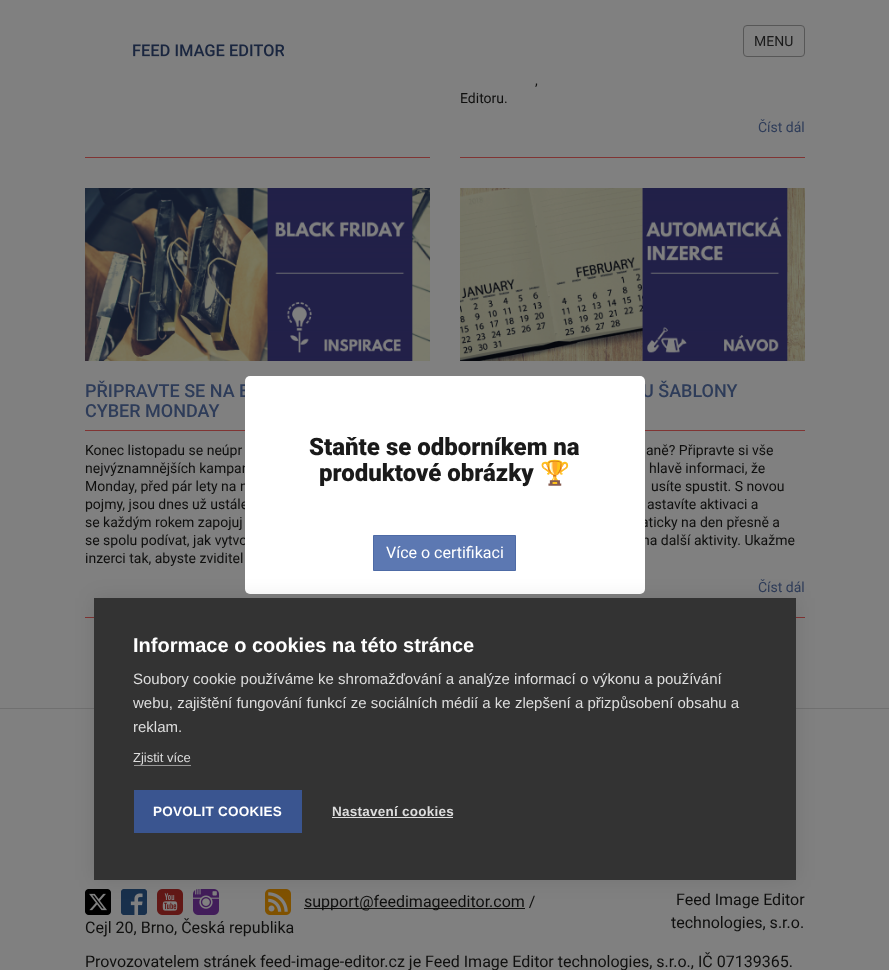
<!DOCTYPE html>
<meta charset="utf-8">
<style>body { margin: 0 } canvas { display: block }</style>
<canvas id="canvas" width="889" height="970"></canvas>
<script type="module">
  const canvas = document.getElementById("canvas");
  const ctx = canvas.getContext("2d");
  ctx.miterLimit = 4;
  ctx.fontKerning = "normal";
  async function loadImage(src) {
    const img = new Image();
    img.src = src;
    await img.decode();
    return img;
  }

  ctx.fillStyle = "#808080";
  ctx.fillRect(0, 0, 889, 970);
  ctx.beginPath();
  ctx.roundRect(743.5, 25.5, 61, 31, 3.5);
  ctx.strokeStyle = "#575757";
  ctx.stroke();
  ctx.font = "14px Roboto";
  ctx.fillStyle = "#1a1a1a";
  ctx.fillText("MENU", 754, 46);
  ctx.drawImage(await loadImage("img1.png"), 133, 44, 151, 13);
  ctx.fillStyle = "#803433";
  ctx.fillRect(460, 157, 345, 1);
  ctx.fillStyle = "#0f0f0e";
  ctx.fillText(",", 535, 85);
  ctx.fillText("Editoru.", 460, 103);
  ctx.fillStyle = "#2e3c59";
  ctx.fillText("Číst dál", 758, 132);
  ctx.fillStyle = "#803433";
  ctx.fillRect(85, 157, 345, 1);
  ctx.fillRect(85, 617, 9, 1);
  ctx.drawImage(await loadImage("img2.png"), 85, 188, 345, 173);
  ctx.fillRect(85, 430, 160, 1);
  ctx.font = "500 18px Roboto";
  ctx.fillStyle = "#2e3c59";
  ctx.fillText("PŘIPRAVTE SE NA B", 85, 397);
  ctx.fillText("CYBER MONDAY", 85, 417);
  ctx.font = "14px Roboto";
  ctx.fillStyle = "#0f0f0e";
  ctx.fillText("Konec listopadu se neúpr", 85, 455);
  ctx.fillText("nejvýznamnějších kampan", 85, 473);
  ctx.fillText("Monday, před pár lety na n", 85, 491);
  ctx.fillText("pojmy, jsou dnes už ustále", 85, 509);
  ctx.fillText("se každým rokem zapojuj", 85, 527);
  ctx.fillText("se spolu podívat, jak vytvo", 85, 545);
  ctx.fillText("inzerci tak, abyste zviditel", 85, 563);
  ctx.fillStyle = "#803433";
  ctx.fillRect(796, 617, 9, 1);
  ctx.drawImage(await loadImage("img3.png"), 460, 188, 345, 173);
  ctx.fillRect(645, 430, 160, 1);
  ctx.font = "500 18px Roboto";
  ctx.fillStyle = "#2e3c59";
  ctx.fillText("U ŠABLONY", 642, 397);
  ctx.font = "14px Roboto";
  ctx.fillStyle = "#0f0f0e";
  ctx.fillText("aně? Připravte si vše", 646, 455);
  ctx.fillText("hlavě informaci, že", 649, 473);
  ctx.fillText("usíte spustit. S novou", 651, 491);
  ctx.fillText("astavíte aktivaci a", 647, 509);
  ctx.fillText("aticky na den přesně a", 641, 527);
  ctx.fillText("na další aktivity. Ukažme", 642, 545);
  ctx.fillStyle = "#2e3c59";
  ctx.fillText("Číst dál", 758, 592);
  ctx.fillStyle = "#707070";
  ctx.fillRect(0, 708, 889, 1);
  ctx.fillStyle = "#ffffff";
  ctx.beginPath();
  ctx.roundRect(245, 376, 400, 218, 5);
  ctx.fill();
  ctx.font = "900 24px Roboto";
  ctx.fillStyle = "#1a1a1a";
  ctx.fillText("Staňte se odborníkem na", 309, 455);
  ctx.fillText("produktové obrázky", 319, 481);
  ctx.font = "bold 24px Noto Color Emoji";
  ctx.fillText("🏆", 540, 481);
  ctx.fillStyle = "#5c78b2";
  ctx.beginPath();
  ctx.rect(373.5, 535.5, 142, 35);
  ctx.fill();
  ctx.strokeStyle = "#4e6ba6";
  ctx.stroke();
  ctx.font = "16px Roboto";
  ctx.fillStyle = "#ffffff";
  ctx.fillText("Více o certifikaci", 386, 558);
  ctx.drawImage(await loadImage("img4.png"), 85, 889, 26, 26);
  ctx.drawImage(await loadImage("img5.png"), 121, 889, 26, 26);
  ctx.drawImage(await loadImage("img6.png"), 157, 889, 26, 26);
  ctx.drawImage(await loadImage("img7.png"), 193, 889, 26, 26);
  ctx.drawImage(await loadImage("img8.png"), 265, 889, 26, 26);
  ctx.fillStyle = "#0f0f0e";
  ctx.fillRect(304, 908, 221, 1);
  ctx.fillText("support@feedimageeditor.com /", 304, 907);
  ctx.fillText("Cejl 20, Brno, Česká republika", 85, 933);
  ctx.fillText("Feed Image Editor", 676, 905);
  ctx.fillText("technologies, s.r.o.", 671, 928);
  ctx.fillText("Provozovatelem stránek feed-image-editor.cz je Feed Image Editor technologies, s.r.o., IČ 07139365.", 85, 967);
  ctx.fillStyle = "rgba(0, 0, 0, 0.1)";
  ctx.filter = "blur(10px)";
  ctx.beginPath();
  ctx.rect(94, 598, 702, 282);
  ctx.fill();
  ctx.filter = "none";
  ctx.fillStyle = "#333333";
  ctx.fillRect(94, 598, 702, 282);
  ctx.font = "bold 20px Liberation Sans";
  ctx.fillStyle = "#ffffff";
  ctx.fillText("Informace o cookies na této stránce", 133, 652);
  ctx.font = "15px Liberation Sans";
  ctx.fillStyle = "#dddddd";
  ctx.fillText("Soubory cookie používáme ke shromažďování a analýze informací o výkonu a používání", 133, 684);
  ctx.fillText("webu, zajištění fungování funkcí ze sociálních médií a ke zlepšení a přizpůsobení obsahu a", 133, 708);
  ctx.fillText("reklam.", 133, 732);
  ctx.font = "13px Liberation Sans";
  ctx.fillText("Zjistit více", 133, 762);
  ctx.fillStyle = "#999999";
  ctx.fillRect(134, 765, 57, 1);
  ctx.fillStyle = "#3a5590";
  ctx.fillRect(134, 790, 168, 43);
  ctx.letterSpacing = "0.25px";
  ctx.font = "bold 13.5px Liberation Sans";
  ctx.fillStyle = "#ffffff";
  ctx.fillText("POVOLIT COOKIES", 153, 816);
  ctx.fillStyle = "#dddddd";
  ctx.fillText("Nastavení cookies", 332, 816);
  ctx.fillRect(332, 817, 121, 1);
</script>
